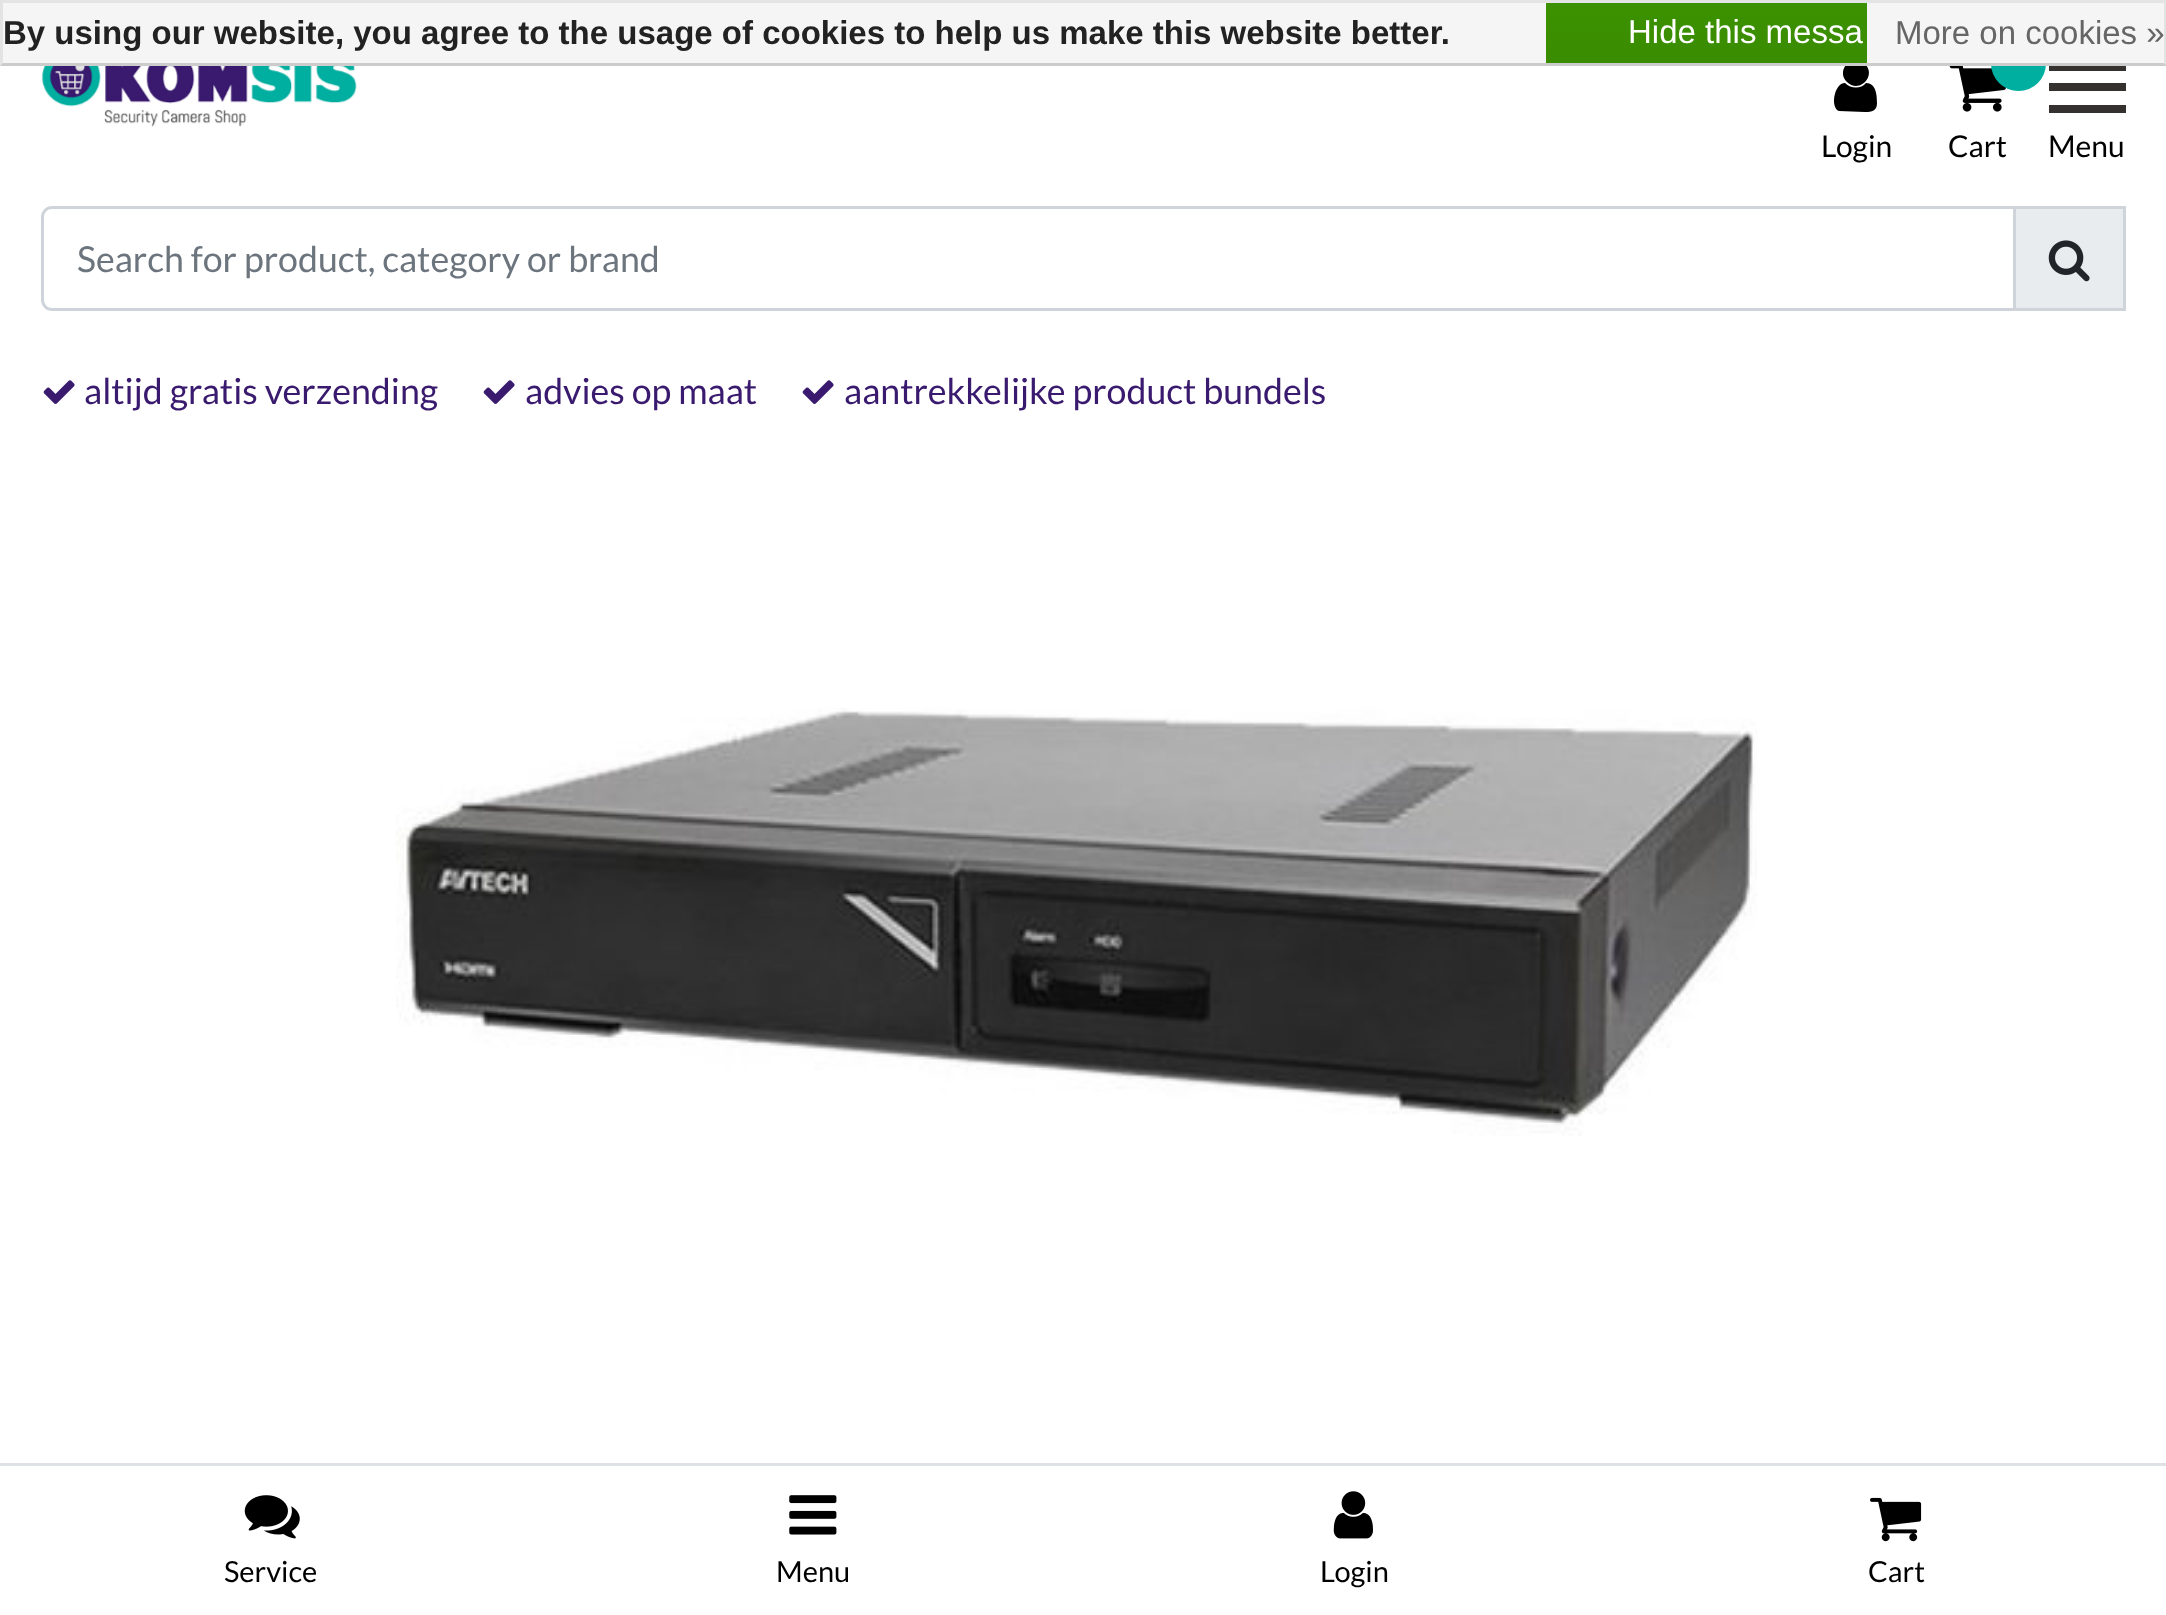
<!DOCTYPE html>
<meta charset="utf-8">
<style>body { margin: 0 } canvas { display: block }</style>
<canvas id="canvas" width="2166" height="1615"></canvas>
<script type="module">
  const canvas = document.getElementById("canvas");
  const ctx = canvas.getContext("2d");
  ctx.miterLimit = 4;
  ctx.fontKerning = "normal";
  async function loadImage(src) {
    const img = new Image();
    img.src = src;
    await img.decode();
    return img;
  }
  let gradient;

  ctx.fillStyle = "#ffffff";
  ctx.fillRect(0, 0, 2166, 1615);
  ctx.fillStyle = "#000000";
  ctx.beginPath();
  ctx.moveTo(1877, 103);
  ctx.bezierCurveTo(1877, 111, 1872, 112, 1865, 112);
  ctx.lineTo(1839, 111);
  ctx.bezierCurveTo(1830, 108, 1834, 83, 1845, 83);
  ctx.bezierCurveTo(1851, 89, 1861, 89, 1866, 83);
  ctx.bezierCurveTo(1876, 83, 1877, 95, 1877, 103);
  ctx.closePath();
  ctx.moveTo(1865, 64);
  ctx.bezierCurveTo(1877, 76, 1859, 94, 1847, 82);
  ctx.bezierCurveTo(1835, 70, 1853, 51, 1865, 64);
  ctx.closePath();
  ctx.fill();
  ctx.drawImage(await loadImage("img2.png"), 1949, 66, 57, 46);
  ctx.fillStyle = "#00afa0";
  ctx.beginPath();
  ctx.arc(2018.5, 63.5, 27.5, 0, Math.PI * 2);
  ctx.fill();
  ctx.fillStyle = "#f5f5f5";
  ctx.fillRect(0, 0, 2166, 66);
  ctx.fillStyle = "#e4e4e4";
  ctx.beginPath();
  ctx.moveTo(0, 0);
  ctx.lineTo(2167, 0);
  ctx.lineTo(2164, 3);
  ctx.lineTo(3, 3);
  ctx.closePath();
  ctx.fill();
  ctx.fillStyle = "rgba(0, 0, 0, 0.07)";
  ctx.beginPath();
  ctx.moveTo(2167, 0);
  ctx.lineTo(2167, 66);
  ctx.lineTo(2164, 63);
  ctx.lineTo(2164, 3);
  ctx.closePath();
  ctx.fill();
  ctx.fillStyle = "#cccccc";
  ctx.beginPath();
  ctx.moveTo(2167, 66);
  ctx.lineTo(0, 66);
  ctx.lineTo(3, 63);
  ctx.lineTo(2164, 63);
  ctx.closePath();
  ctx.fill();
  ctx.fillStyle = "rgba(0, 0, 0, 0.07)";
  ctx.beginPath();
  ctx.moveTo(0, 66);
  ctx.lineTo(0, 0);
  ctx.lineTo(3, 3);
  ctx.lineTo(3, 63);
  ctx.closePath();
  ctx.fill();
  ctx.font = "bold 33px Liberation Sans";
  ctx.fillStyle = "#222222";
  ctx.fillText("By using our website, you agree to the usage of cookies to help us make this website better.", 3, 44);
  gradient = ctx.createLinearGradient(1706, -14, 1706, 83);
  gradient.addColorStop(0, "#3c9300");
  gradient.addColorStop(1, "#398a00");
  ctx.fillStyle = gradient;
  ctx.fillRect(1546, 3, 321, 60);
  ctx.font = "33px Liberation Sans";
  ctx.fillStyle = "#ffffff";
  ctx.fillText("Hide this messa", 1628, 43);
  ctx.fillStyle = "#666666";
  ctx.fillText("More on cookies »", 1895, 44);
  ctx.drawImage(await loadImage("img1.png"), 41, 66, 316, 61);
  ctx.font = "30px Lato";
  ctx.fillStyle = "#000000";
  ctx.fillText("Login", 1821, 157);
  ctx.fillText("Cart", 1948, 157);
  ctx.fillStyle = "#34312f";
  ctx.fillRect(2049, 66, 77, 5);
  ctx.fillRect(2049, 83, 77, 8);
  ctx.fillRect(2049, 105, 77, 8);
  ctx.fillStyle = "#000000";
  ctx.fillText("Menu", 2048, 157);
  ctx.fillStyle = "#e9ecef";
  ctx.beginPath();
  ctx.rect(2014.5, 207.5, 110, 102);
  ctx.fill();
  ctx.strokeStyle = "#ced4da";
  ctx.lineWidth = 3;
  ctx.stroke();
  ctx.beginPath();
  ctx.roundRect(42.5, 207.5, 1972, 102, [9.5, 0, 0, 9.5]);
  ctx.stroke();
  ctx.font = "35.75px Lato";
  ctx.fillStyle = "#6c757d";
  ctx.fillText("Search for product, category or brand", 77, 272);
  ctx.drawImage(await loadImage("img3.png"), 2048, 240, 42, 42);
  ctx.drawImage(await loadImage("img4.png"), 43, 380, 32, 24);
  ctx.fillStyle = "#391a6e";
  ctx.fillText("altijd gratis verzending", 84, 404);
  ctx.drawImage(await loadImage("img4.png"), 483, 380, 32, 24);
  ctx.fillText("advies op maat", 525, 404);
  ctx.drawImage(await loadImage("img4.png"), 802, 380, 32, 24);
  ctx.fillText("aantrekkelijke product bundels", 844, 404);
  ctx.drawImage(await loadImage("img5.png"), 396, 708, 1361, 428);
  ctx.fillStyle = "#dee2e6";
  ctx.fillRect(0, 1463, 2166, 3);
  ctx.drawImage(await loadImage("img6.png"), 244, 1495, 56, 44);
  ctx.font = "29px Lato";
  ctx.fillStyle = "#000000";
  ctx.fillText("Service", 224, 1582);
  ctx.drawImage(await loadImage("img7.png"), 789, 1495, 48, 40);
  ctx.fillText("Menu", 776, 1582);
  ctx.drawImage(await loadImage("img8.png"), 1333, 1491, 40, 48);
  ctx.fillText("Login", 1320, 1582);
  ctx.drawImage(await loadImage("img9.png"), 1870, 1497, 52, 45);
  ctx.fillText("Cart", 1868, 1582);
</script>
